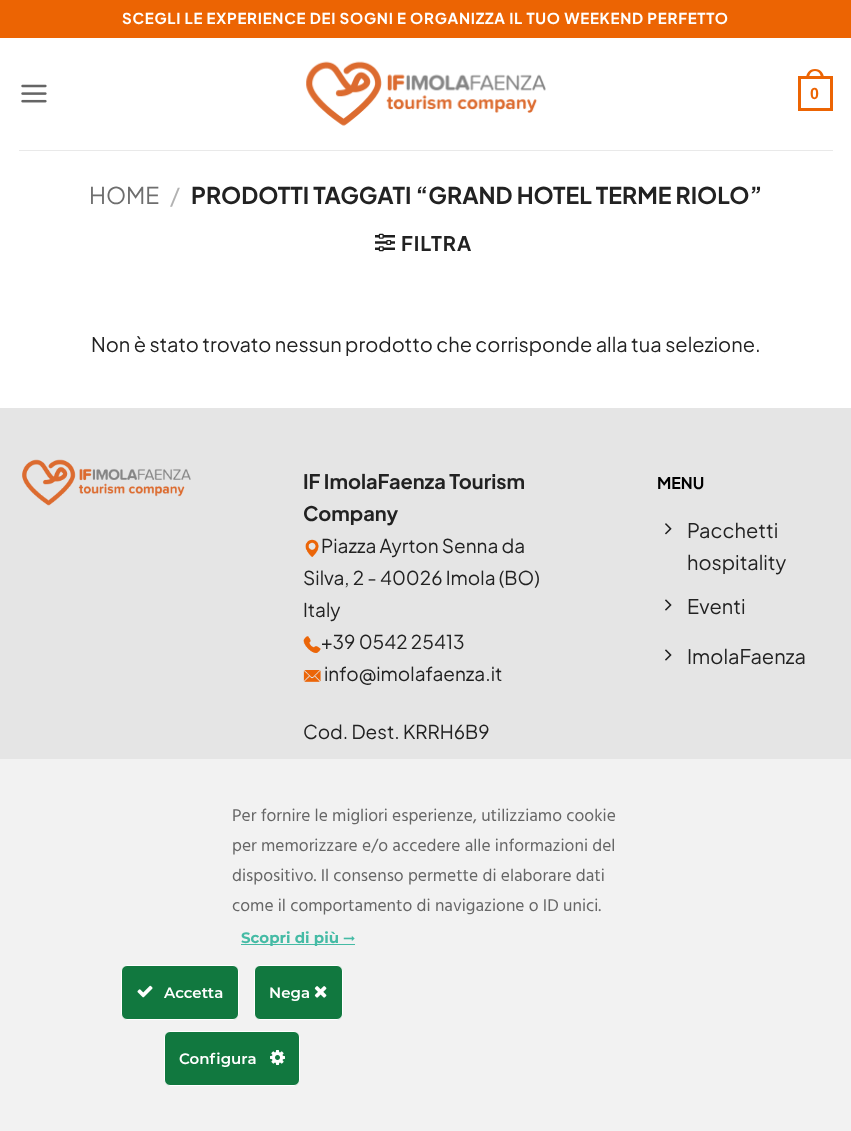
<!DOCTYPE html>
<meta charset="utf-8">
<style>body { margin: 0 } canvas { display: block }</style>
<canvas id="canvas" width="851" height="1131"></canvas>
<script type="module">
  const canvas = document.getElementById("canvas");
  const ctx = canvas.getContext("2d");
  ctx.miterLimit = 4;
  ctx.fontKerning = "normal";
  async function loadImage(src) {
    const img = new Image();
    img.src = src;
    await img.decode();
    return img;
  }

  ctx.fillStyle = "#ffffff";
  ctx.fillRect(0, 0, 851, 1131);
  ctx.fillStyle = "#ec6403";
  ctx.fillRect(0, 0, 851, 38);
  ctx.letterSpacing = "0.75px";
  ctx.font = "bold 15px Plus Jakarta Sans";
  ctx.fillStyle = "#ffffff";
  ctx.fillText("SCEGLI LE EXPERIENCE DEI SOGNI E ORGANIZZA IL TUO WEEKEND PERFETTO", 122, 24);
  ctx.drawImage(await loadImage("img1.png"), 21, 84, 26, 19);
  ctx.drawImage(await loadImage("img2.png"), 306, 61, 240, 65);
  ctx.strokeStyle = "#ec6403";
  ctx.lineWidth = 3;
  ctx.strokeRect(799.5, 77.5, 32, 32);
  ctx.fillStyle = "#ec6403";
  ctx.beginPath();
  ctx.moveTo(815, 69);
  ctx.bezierCurveTo(821, 69, 824, 73.5, 824, 79);
  ctx.lineTo(806, 79);
  ctx.bezierCurveTo(806, 73.5, 809, 69, 815, 69);
  ctx.closePath();
  ctx.moveTo(815, 71);
  ctx.bezierCurveTo(819.5, 71, 821, 75, 821, 79);
  ctx.lineTo(809, 79);
  ctx.bezierCurveTo(809, 75, 810.5, 71, 815, 71);
  ctx.closePath();
  ctx.fill("evenodd");
  ctx.letterSpacing = "0px";
  ctx.font = "bold 16px Liberation Sans";
  ctx.fillText("0", 810, 99);
  ctx.fillStyle = "#e9e9e9";
  ctx.fillRect(19, 150, 814, 1);
  ctx.font = "23px Plus Jakarta Sans";
  ctx.fillStyle = "#6e6e6e";
  ctx.fillText("HOME", 89, 204);
  ctx.fillStyle = "#b2b2b2";
  ctx.fillText("/", 170, 204);
  ctx.font = "bold 23px Plus Jakarta Sans";
  ctx.fillStyle = "#222222";
  ctx.fillText("PRODOTTI TAGGATI “GRAND HOTEL TERME RIOLO”", 191, 204);
  ctx.drawImage(await loadImage("img3.png"), 375, 233, 20, 19);
  ctx.letterSpacing = "1px";
  ctx.font = "bold 20px Plus Jakarta Sans";
  ctx.fillText("FILTRA", 401, 251);
  ctx.letterSpacing = "0px";
  ctx.font = "20px Plus Jakarta Sans";
  ctx.fillText("Non è stato trovato nessun prodotto che corrisponde alla tua selezione.", 91, 352);
  ctx.fillStyle = "#e5e5e5";
  ctx.fillRect(0, 408, 851, 351);
  ctx.drawImage(await loadImage("img4.png"), 22, 459, 169, 47);
  ctx.font = "bold 20px Plus Jakarta Sans";
  ctx.fillStyle = "#222222";
  ctx.fillText("IF ImolaFaenza Tourism", 303, 489);
  ctx.fillText("Company", 303, 521);
  ctx.drawImage(await loadImage("img5.png"), 305, 539, 14, 18);
  ctx.font = "19px Plus Jakarta Sans";
  ctx.fillText("Piazza Ayrton Senna da", 321, 553);
  ctx.fillText("Silva, 2 - 40026 Imola (BO)", 303, 585);
  ctx.fillText("Italy", 303, 617);
  ctx.drawImage(await loadImage("img6.png"), 303, 636, 18, 17);
  ctx.fillText("+39 0542 25413", 321, 649);
  ctx.drawImage(await loadImage("img7.png"), 303, 670, 18, 12);
  ctx.fillText("info@imolafaenza.it", 324, 681);
  ctx.fillText("Cod. Dest. KRRH6B9", 303, 739);
  ctx.font = "bold 16px Plus Jakarta Sans";
  ctx.fillStyle = "#000000";
  ctx.fillText("MENU", 657, 489);
  ctx.drawImage(await loadImage("img8.png"), 665, 523, 7, 12);
  ctx.font = "20px Plus Jakarta Sans";
  ctx.fillStyle = "#222222";
  ctx.fillText("Pacchetti", 687, 538);
  ctx.fillText("hospitality", 687, 570);
  ctx.drawImage(await loadImage("img9.png"), 665, 599, 7, 12);
  ctx.fillText("Eventi", 687, 614);
  ctx.drawImage(await loadImage("img9.png"), 665, 649, 7, 12);
  ctx.fillText("ImolaFaenza", 687, 664);
  ctx.fillStyle = "#f2f2f2";
  ctx.fillRect(0, 759, 851, 372);
  ctx.font = "17.5px Hind";
  ctx.fillStyle = "#666666";
  ctx.fillText("Per fornire le migliori esperienze, utilizziamo cookie", 232, 821);
  ctx.fillText("per memorizzare e/o accedere alle informazioni del", 232, 851);
  ctx.fillText("dispositivo. Il consenso permette di elaborare dati", 232, 881);
  ctx.fillText("come il comportamento di navigazione o ID unici.", 232, 911);
  ctx.fillStyle = "#45bba5";
  ctx.fillRect(241, 944, 114, 1);
  ctx.font = "bold 15px Montserrat";
  ctx.fillText("Scopri di più", 241, 943);
  ctx.drawImage(await loadImage("img10.png"), 343, 936, 12, 5);
  ctx.fillStyle = "#11783f";
  ctx.beginPath();
  ctx.roundRect(121.5, 965.5, 117, 54, 5.5);
  ctx.fill();
  ctx.strokeStyle = "#ffffff";
  ctx.lineWidth = 1;
  ctx.stroke();
  ctx.drawImage(await loadImage("img11.png"), 137, 985, 16, 13);
  ctx.font = "600 15px Montserrat";
  ctx.fillStyle = "#ffffff";
  ctx.fillText("Accetta", 164, 998);
  ctx.fillStyle = "#11783f";
  ctx.beginPath();
  ctx.roundRect(254.5, 965.5, 88, 54, 5.5);
  ctx.fill();
  ctx.stroke();
  ctx.fillStyle = "#ffffff";
  ctx.fillText("Nega", 269, 998);
  ctx.drawImage(await loadImage("img12.png"), 314, 986, 13, 12);
  ctx.fillStyle = "#11783f";
  ctx.beginPath();
  ctx.roundRect(164.5, 1031.5, 135, 54, 5.5);
  ctx.fill();
  ctx.stroke();
  ctx.fillStyle = "#ffffff";
  ctx.fillText("Configura", 179, 1064);
  ctx.drawImage(await loadImage("img13.png"), 270, 1050, 15, 15);
</script>
